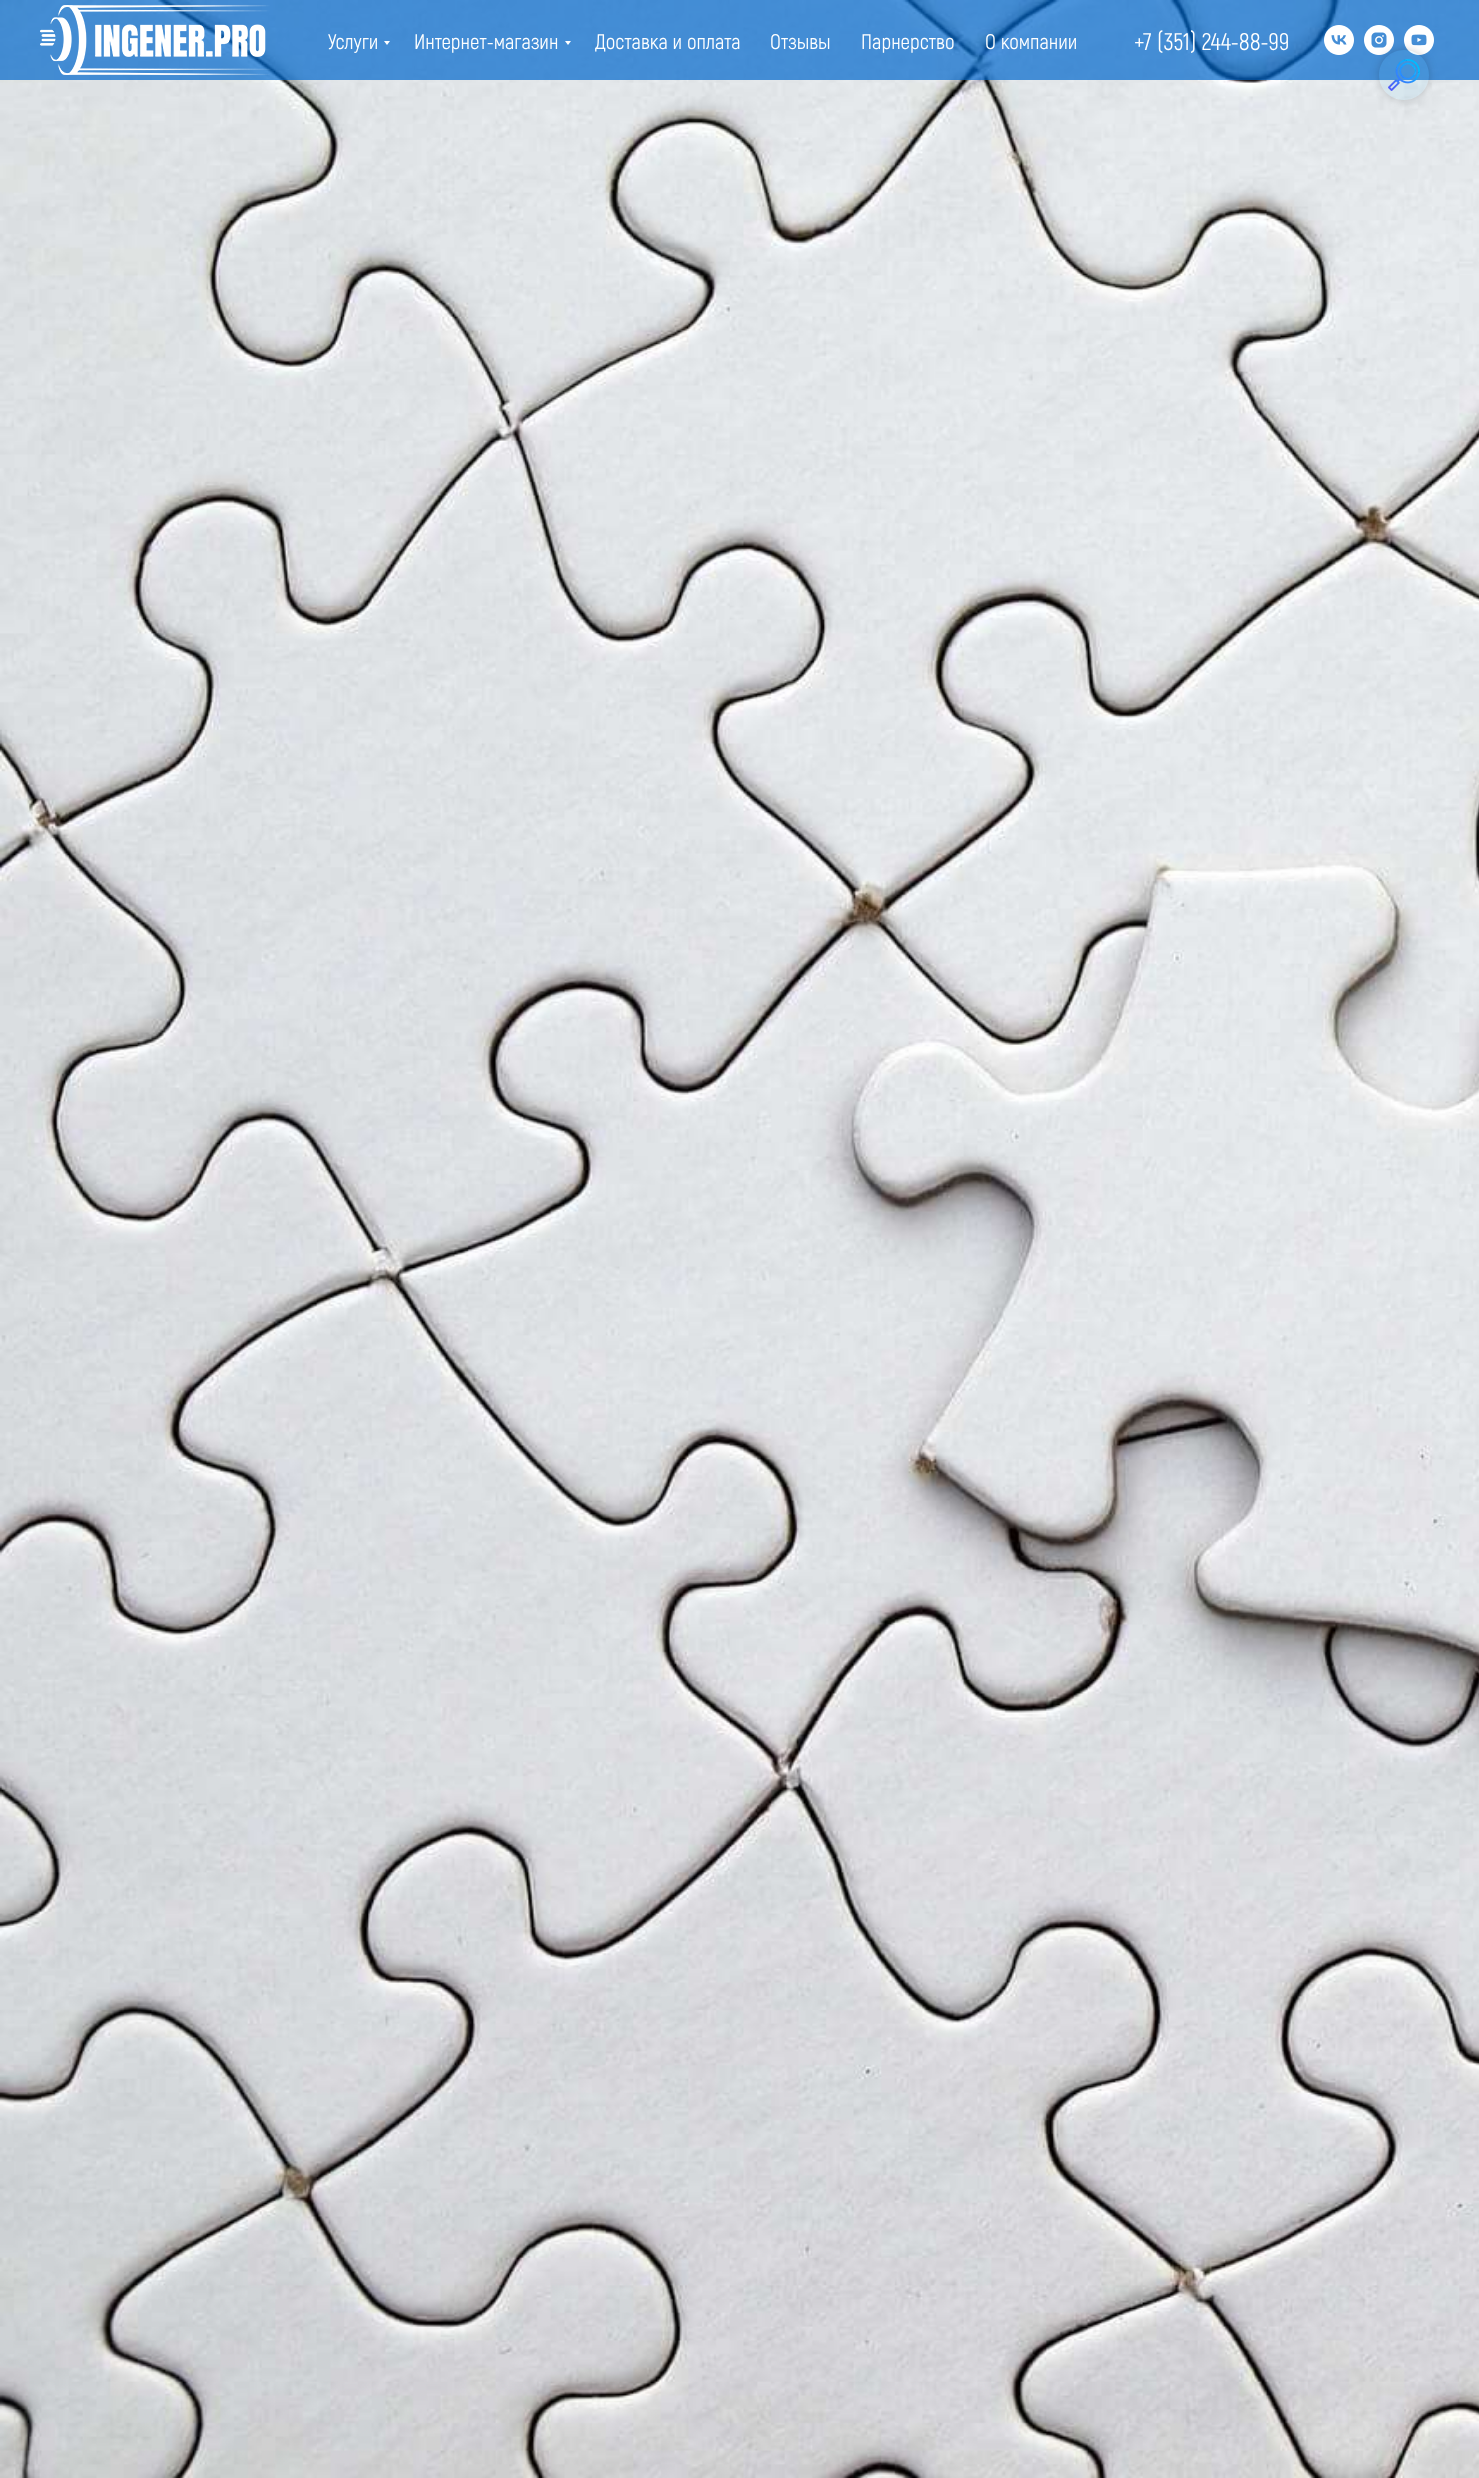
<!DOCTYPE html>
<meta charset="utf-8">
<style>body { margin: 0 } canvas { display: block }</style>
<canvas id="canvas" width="1479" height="2478"></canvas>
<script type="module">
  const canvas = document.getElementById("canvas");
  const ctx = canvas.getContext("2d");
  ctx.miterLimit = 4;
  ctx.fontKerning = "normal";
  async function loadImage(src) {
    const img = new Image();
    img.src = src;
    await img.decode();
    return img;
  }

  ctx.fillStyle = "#ffffff";
  ctx.fillRect(0, 0, 1479, 2478);
  ctx.drawImage(await loadImage("img1.png"), 0, 0, 1479, 2478);
  ctx.fillStyle = "rgba(0, 102, 204, 0.7)";
  ctx.fillRect(0, 0, 1479, 80);
  ctx.drawImage(await loadImage("img2.png"), 40, 5, 231, 70);
  ctx.font = "21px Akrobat";
  ctx.fillStyle = "#ffffff";
  ctx.fillText("Услуги", 328, 49);
  ctx.beginPath();
  ctx.moveTo(384, 41);
  ctx.lineTo(390, 41);
  ctx.lineTo(387, 45);
  ctx.closePath();
  ctx.fill();
  ctx.fillText("Интернет-магазин", 414, 49);
  ctx.beginPath();
  ctx.moveTo(565, 41);
  ctx.lineTo(571, 41);
  ctx.lineTo(568, 45);
  ctx.closePath();
  ctx.fill();
  ctx.fillText("Доставка и оплата", 595, 49);
  ctx.fillText("Отзывы", 770, 49);
  ctx.fillText("Парнерство", 861, 49);
  ctx.fillText("О компании", 985, 49);
  ctx.font = "24px Akrobat";
  ctx.fillText("+7 (351) 244-88-99", 1134, 50);
  ctx.drawImage(await loadImage("img3.png"), 1324, 25, 30, 30);
  ctx.drawImage(await loadImage("img4.png"), 1364, 25, 30, 30);
  ctx.drawImage(await loadImage("img5.png"), 1404, 25, 30, 30);
  ctx.save();
  ctx.beginPath();
  ctx.moveTo(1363, 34);
  ctx.lineTo(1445, 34);
  ctx.lineTo(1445, 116);
  ctx.lineTo(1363, 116);
  ctx.closePath();
  ctx.moveTo(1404, 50);
  ctx.bezierCurveTo(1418, 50, 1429, 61, 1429, 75);
  ctx.bezierCurveTo(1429, 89, 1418, 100, 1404, 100);
  ctx.bezierCurveTo(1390, 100, 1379, 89, 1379, 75);
  ctx.bezierCurveTo(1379, 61, 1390, 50, 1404, 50);
  ctx.closePath();
  ctx.clip("evenodd");
  ctx.fillStyle = "rgba(0, 0, 0, 0.2)";
  ctx.filter = "blur(5px)";
  ctx.beginPath();
  ctx.roundRect(1379, 50, 50, 50, 25);
  ctx.fill();
  ctx.filter = "none";
  ctx.restore();
  ctx.fillStyle = "rgba(84, 199, 246, 0.1)";
  ctx.beginPath();
  ctx.arc(1404, 75, 25, 0, Math.PI * 2);
  ctx.fill();
  ctx.drawImage(await loadImage("img6.png"), 1388, 59, 32, 32);
</script>
